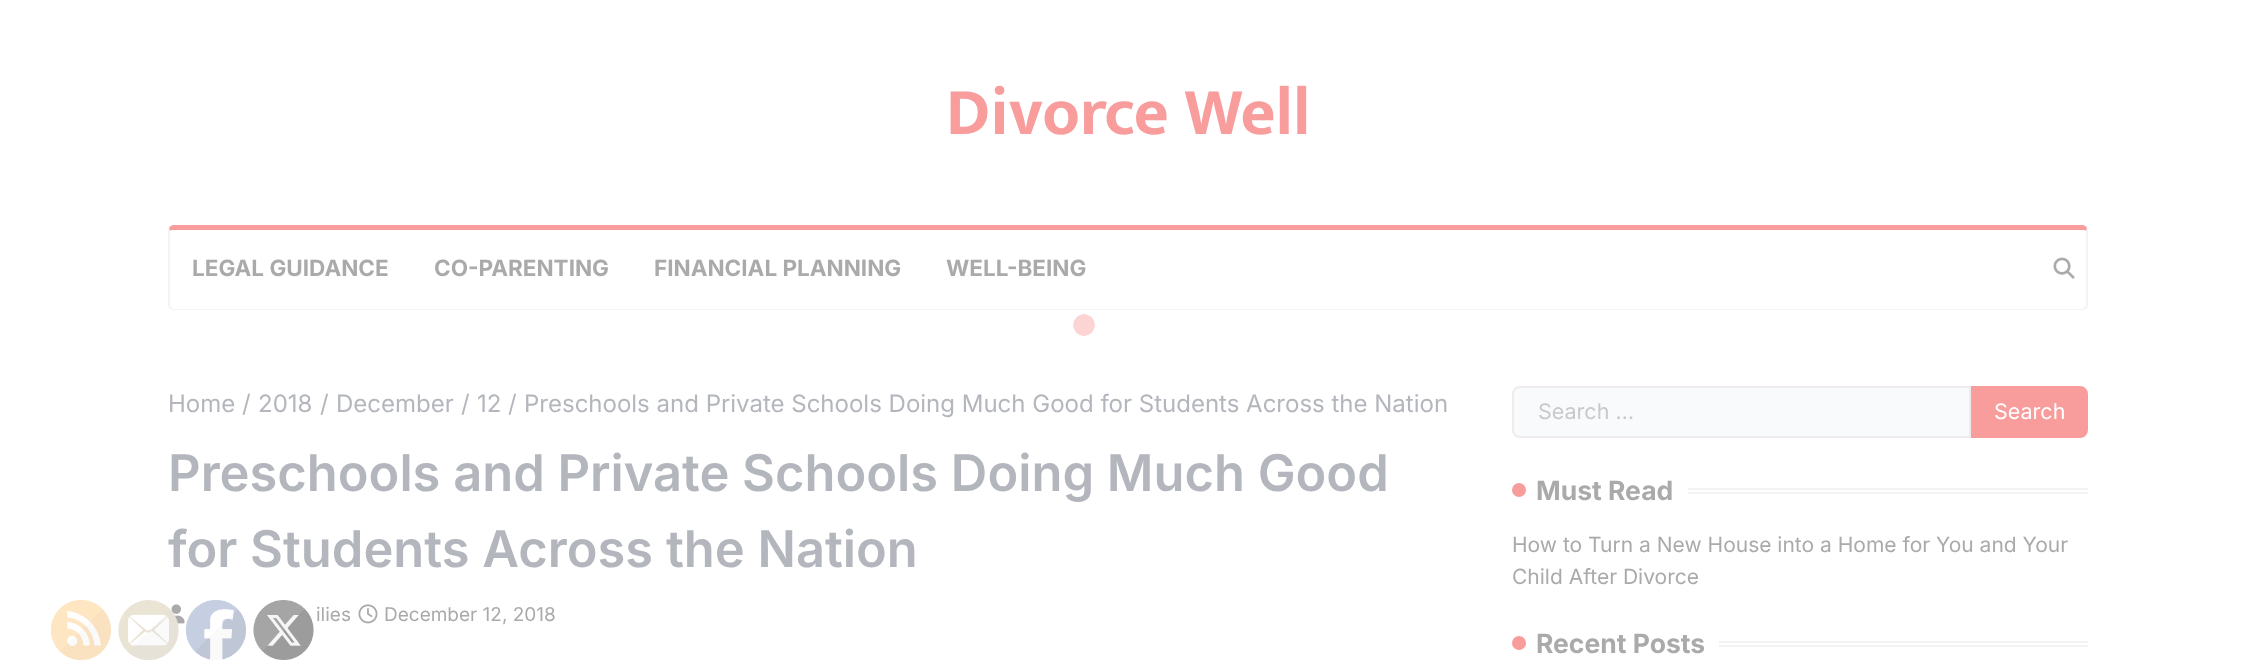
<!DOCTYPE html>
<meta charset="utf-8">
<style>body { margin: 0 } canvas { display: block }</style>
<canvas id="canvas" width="2256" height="670"></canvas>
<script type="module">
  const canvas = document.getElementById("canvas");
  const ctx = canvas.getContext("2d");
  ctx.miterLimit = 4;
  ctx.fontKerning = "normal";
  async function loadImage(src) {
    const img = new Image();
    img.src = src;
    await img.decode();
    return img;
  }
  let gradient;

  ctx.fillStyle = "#ffffff";
  ctx.fillRect(0, 0, 2256, 670);
  ctx.font = "bold 67.5px Mukta";
  ctx.fillStyle = "#f89c9c";
  ctx.fillText("Divorce Well", 946, 134);
  ctx.beginPath();
  ctx.moveTo(174, 225);
  ctx.bezierCurveTo(172, 225, 170, 226, 169, 228);
  ctx.lineTo(170, 231);
  ctx.bezierCurveTo(170, 230, 172, 230, 174, 230);
  ctx.lineTo(2082, 230);
  ctx.bezierCurveTo(2084, 230, 2086, 230, 2086, 231);
  ctx.lineTo(2087, 228);
  ctx.bezierCurveTo(2086, 226, 2084, 225, 2082, 225);
  ctx.closePath();
  ctx.fill();
  ctx.fillStyle = "rgba(216, 216, 216, 0.3)";
  ctx.beginPath();
  ctx.moveTo(2088, 304);
  ctx.lineTo(2088, 231);
  ctx.lineTo(2087, 228);
  ctx.lineTo(2086, 231);
  ctx.lineTo(2086, 304);
  ctx.bezierCurveTo(2086, 305, 2086, 307, 2085, 307);
  ctx.lineTo(2086, 309);
  ctx.bezierCurveTo(2087, 308, 2088, 306, 2088, 304);
  ctx.closePath();
  ctx.fill();
  ctx.beginPath();
  ctx.moveTo(2086, 309);
  ctx.bezierCurveTo(2085, 310, 2083, 310, 2082, 310);
  ctx.lineTo(173, 310);
  ctx.lineTo(170, 309);
  ctx.lineTo(171, 307);
  ctx.bezierCurveTo(172, 308, 173, 309, 174, 309);
  ctx.lineTo(2082, 309);
  ctx.bezierCurveTo(2083, 309, 2084, 308, 2085, 307);
  ctx.closePath();
  ctx.fill();
  ctx.beginPath();
  ctx.moveTo(168, 231);
  ctx.lineTo(168, 305);
  ctx.lineTo(170, 309);
  ctx.lineTo(171, 307);
  ctx.bezierCurveTo(170, 307, 170, 305, 170, 304);
  ctx.lineTo(170, 231);
  ctx.lineTo(169, 228);
  ctx.closePath();
  ctx.fill();
  ctx.font = "bold 22.5px Inter";
  ctx.fillStyle = "#aaaaaa";
  ctx.fillText("LEGAL GUIDANCE", 192, 276);
  ctx.fillText("CO-PARENTING", 434, 276);
  ctx.fillText("FINANCIAL PLANNING", 654, 276);
  ctx.fillText("WELL-BEING", 946, 276);
  ctx.drawImage(await loadImage("img1.png"), 2053, 257, 22, 22);
  gradient = ctx.createRadialGradient(1084, 325, 0, 1084, 325, 11);
  gradient.addColorStop(0.9, "#fcd4d4");
  gradient.addColorStop(1, "#ffffff");
  ctx.fillStyle = gradient;
  ctx.fillRect(1073, 314, 22, 22);
  gradient = ctx.createRadialGradient(1084, 325, 0, 1084, 325, 11);
  gradient.addColorStop(0.9, "#fcd4d4");
  gradient.addColorStop(1, "rgba(252, 212, 212, 0)");
  ctx.fillStyle = gradient;
  ctx.fillRect(1073, 314, 22, 22);
  ctx.fillRect(1073, 314, 22, 22);
  ctx.fillRect(1073, 314, 22, 22);
  ctx.font = "24px Inter";
  ctx.fillStyle = "#b3b6bc";
  ctx.fillText("Home", 168, 412);
  ctx.fillText("/", 242, 412);
  ctx.fillText("2018", 258, 412);
  ctx.fillText("/", 320, 412);
  ctx.fillText("December", 336, 412);
  ctx.fillText("/", 461, 412);
  ctx.fillText("12", 477, 412);
  ctx.fillText("/", 508, 412);
  ctx.fillText("Preschools and Private Schools Doing Much Good for Students Across the Nation", 524, 412);
  ctx.font = "600 50.6px Inter";
  ctx.fillText("Preschools and Private Schools Doing Much Good", 168, 491);
  ctx.fillText("for Students Across the Nation", 168, 567);
  ctx.drawImage(await loadImage("img2.png"), 171, 604, 14, 20);
  ctx.font = "19px Inter";
  ctx.fillStyle = "#aaaaaa";
  ctx.fillText("ilies", 316, 621);
  ctx.drawImage(await loadImage("img3.png"), 358, 604, 20, 20);
  ctx.fillText("December 12, 2018", 384, 621);
  ctx.fillStyle = "#f9fafc";
  ctx.beginPath();
  ctx.roundRect(1513, 387, 457, 50, [7, 0, 0, 7]);
  ctx.fill();
  ctx.strokeStyle = "#eeeced";
  ctx.lineWidth = 2;
  ctx.stroke();
  ctx.font = "21.5px Inter";
  ctx.fillStyle = "#c9c9c9";
  ctx.fillText("Search …", 1538, 419);
  ctx.fillStyle = "#f89c9c";
  ctx.beginPath();
  ctx.roundRect(1972, 387, 115, 50, [0, 7, 7, 0]);
  ctx.fill();
  ctx.strokeStyle = "#f89c9c";
  ctx.stroke();
  ctx.fillStyle = "#ffffff";
  ctx.fillText("Search", 1994, 419);
  ctx.fillStyle = "#f89c9c";
  ctx.beginPath();
  ctx.arc(1519, 490, 7, 0, Math.PI * 2);
  ctx.fill();
  ctx.font = "bold 26.5px Inter";
  ctx.fillStyle = "#aaaaaa";
  ctx.fillText("Must Read", 1536, 500);
  ctx.fillStyle = "#f3f3f3";
  ctx.fillRect(1688, 488, 400, 2);
  ctx.fillRect(1688, 492, 400, 2);
  ctx.font = "21px Inter";
  ctx.fillStyle = "#aaaaaa";
  ctx.fillText("How to Turn a New House into a Home for You and Your", 1512, 552);
  ctx.fillText("Child After Divorce", 1512, 584);
  ctx.fillStyle = "#f89c9c";
  ctx.beginPath();
  ctx.arc(1519, 643, 7, 0, Math.PI * 2);
  ctx.fill();
  ctx.font = "bold 26.5px Inter";
  ctx.fillStyle = "#aaaaaa";
  ctx.fillText("Recent Posts", 1536, 653);
  ctx.fillStyle = "#f3f3f3";
  ctx.fillRect(1719, 641, 369, 2);
  ctx.fillRect(1719, 645, 369, 2);
  ctx.drawImage(await loadImage("img4.png"), 51, 600, 60, 60);
  ctx.drawImage(await loadImage("img5.png"), 118, 600, 61, 60);
  ctx.drawImage(await loadImage("img6.png"), 186, 600, 60, 60);
  ctx.drawImage(await loadImage("img7.png"), 253, 600, 61, 60);
</script>
